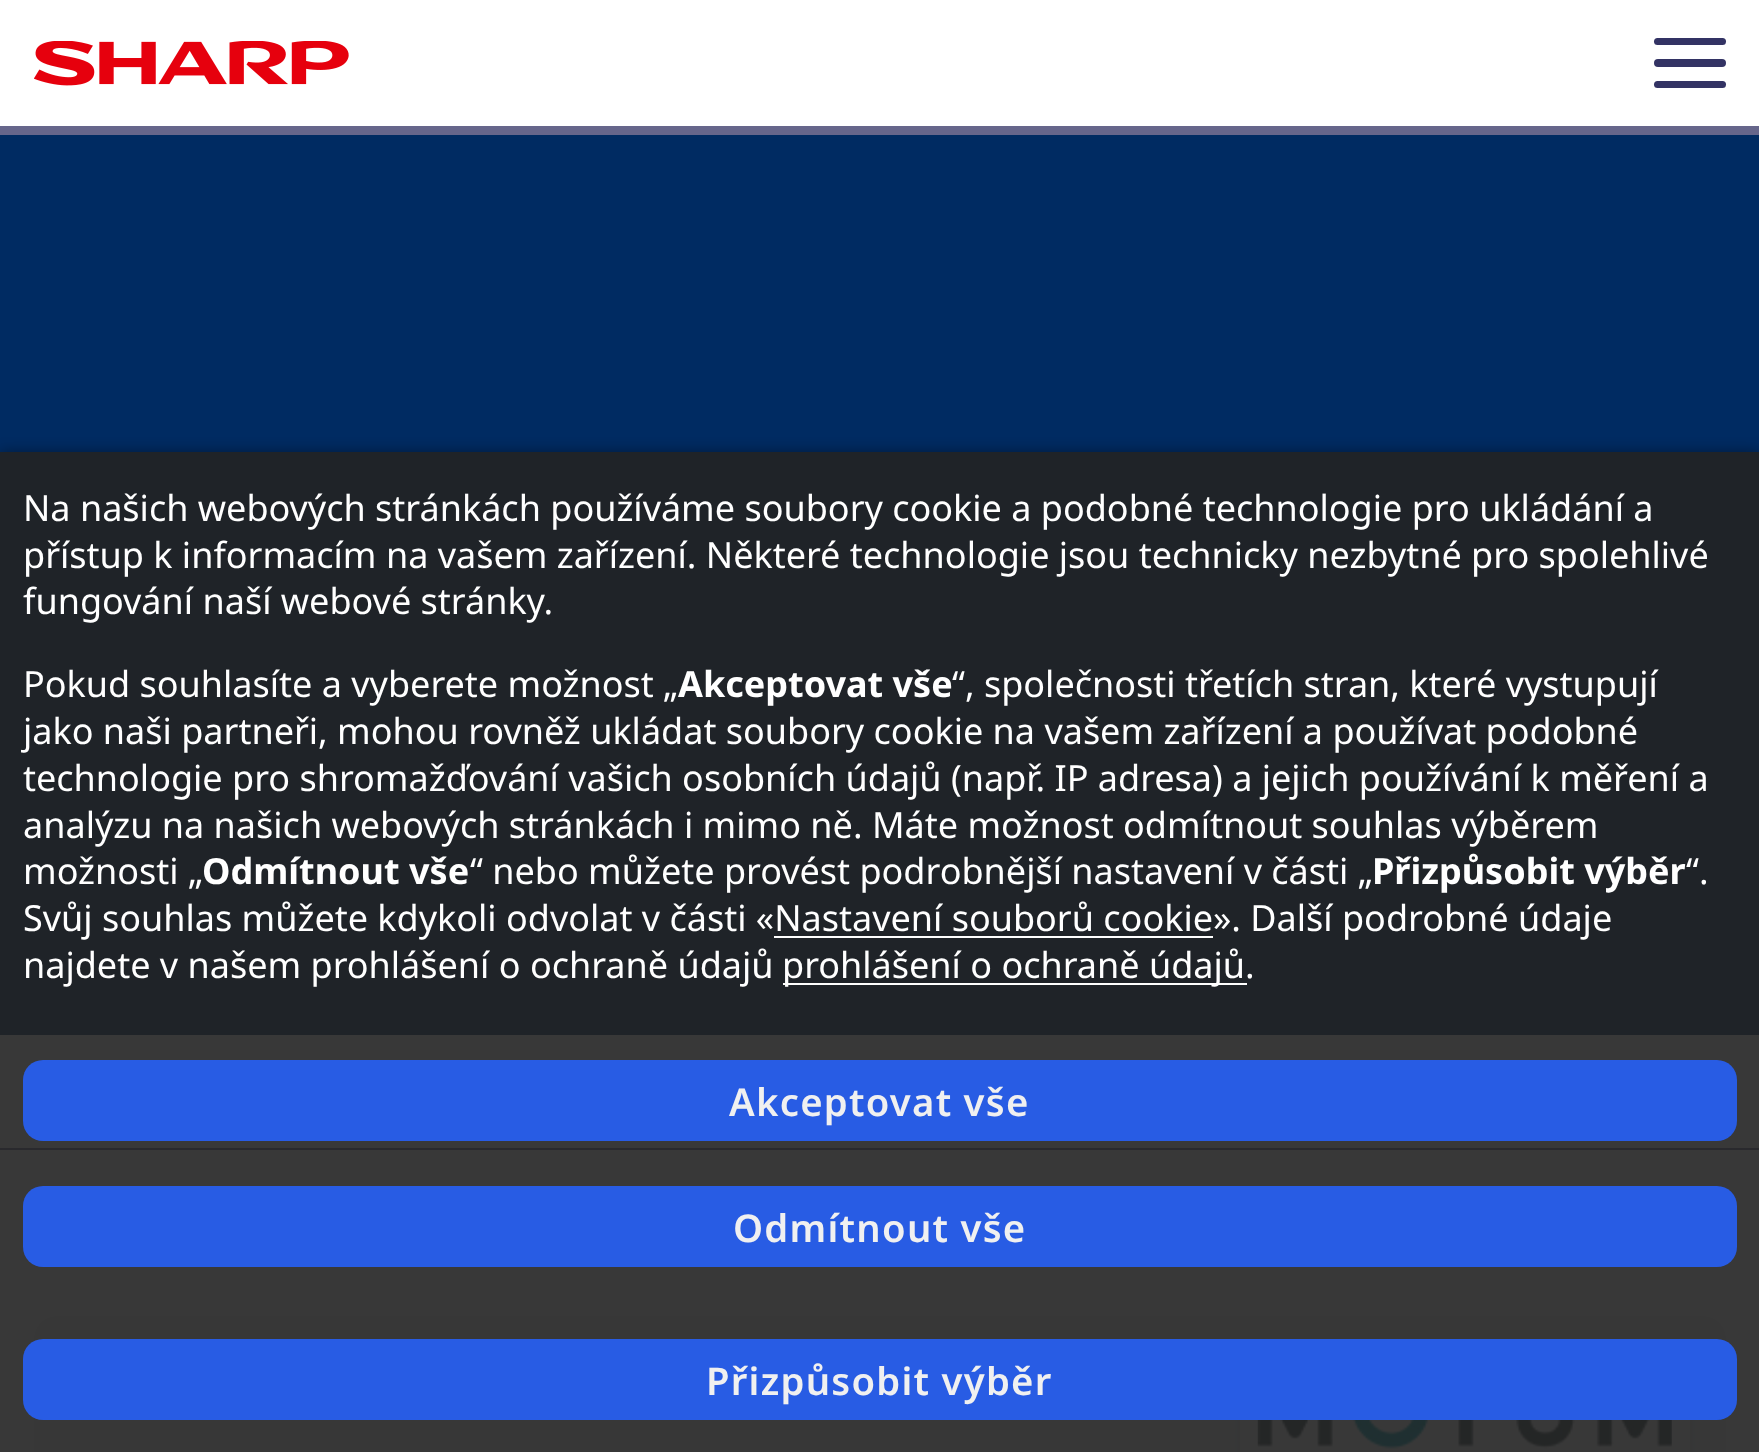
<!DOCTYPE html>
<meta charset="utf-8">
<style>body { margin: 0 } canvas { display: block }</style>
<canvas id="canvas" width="1759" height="1452"></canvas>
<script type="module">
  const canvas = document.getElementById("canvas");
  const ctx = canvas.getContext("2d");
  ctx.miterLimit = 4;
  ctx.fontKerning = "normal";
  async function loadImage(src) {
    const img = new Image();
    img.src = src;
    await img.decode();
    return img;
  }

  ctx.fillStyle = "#ffffff";
  ctx.fillRect(0, 0, 1759, 1452);
  ctx.fillStyle = "#66668b";
  ctx.fillRect(0, 126, 1759, 9);
  ctx.drawImage(await loadImage("img1.png"), 34, 41, 315, 45);
  ctx.fillStyle = "#333364";
  ctx.beginPath();
  ctx.roundRect(1654, 38, 72, 7, 3.5);
  ctx.fill();
  ctx.beginPath();
  ctx.roundRect(1654, 59, 72, 8, 4);
  ctx.fill();
  ctx.beginPath();
  ctx.roundRect(1654, 81, 72, 7, 3.5);
  ctx.fill();
  ctx.fillStyle = "#002b62";
  ctx.fillRect(0, 135, 1759, 900);
  ctx.fillStyle = "#66668b";
  ctx.fillRect(0, 1148, 1759, 2);
  ctx.fillStyle = "#f0f3f4";
  ctx.beginPath();
  ctx.roundRect(34, 1316, 1692, 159, 23);
  ctx.fill();
  ctx.fillStyle = "rgba(0, 0, 0, 0.1)";
  ctx.filter = "blur(4.5px)";
  ctx.beginPath();
  ctx.rect(1240, 1359, 450, 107);
  ctx.fill();
  ctx.filter = "none";
  ctx.fillStyle = "#ffffff";
  ctx.fillRect(1240, 1420, 450, 32);
  ctx.drawImage(await loadImage("img2.png"), 1257, 1420, 415, 32);
  ctx.save();
  ctx.beginPath();
  ctx.moveTo(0, 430);
  ctx.lineTo(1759, 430);
  ctx.lineTo(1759, 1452);
  ctx.lineTo(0, 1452);
  ctx.closePath();
  ctx.moveTo(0, 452);
  ctx.lineTo(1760, 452);
  ctx.lineTo(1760, 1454);
  ctx.lineTo(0, 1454);
  ctx.closePath();
  ctx.clip("evenodd");
  ctx.fillStyle = "rgba(0, 0, 0, 0.4)";
  ctx.filter = "blur(7px)";
  ctx.beginPath();
  ctx.rect(0, 452, 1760, 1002);
  ctx.fill();
  ctx.filter = "none";
  ctx.restore();
  ctx.fillStyle = "rgba(34, 34, 34, 0.9)";
  ctx.fillRect(0, 452, 1759, 1000);
  ctx.font = "36px Noto Sans";
  ctx.fillStyle = "#ffffff";
  ctx.fillText("Na našich webových stránkách používáme soubory cookie a podobné technologie pro ukládání a", 23, 521);
  ctx.fillText("přístup k informacím na vašem zařízení. Některé technologie jsou technicky nezbytné pro spolehlivé", 23, 568);
  ctx.fillText("fungování naší webové stránky.", 23, 614);
  ctx.fillText("Pokud souhlasíte a vyberete možnost „", 23, 697);
  ctx.font = "bold 36px Noto Sans";
  ctx.fillText("Akceptovat vše", 678, 697);
  ctx.font = "36px Noto Sans";
  ctx.fillText("“, společnosti třetích stran, které vystupují", 952, 697);
  ctx.fillText("jako naši partneři, mohou rovněž ukládat soubory cookie na vašem zařízení a používat podobné", 23, 744);
  ctx.fillText("technologie pro shromažďování vašich osobních údajů (např. IP adresa) a jejich používání k měření a", 23, 791);
  ctx.fillText("analýzu na našich webových stránkách i mimo ně. Máte možnost odmítnout souhlas výběrem", 23, 838);
  ctx.fillText("možnosti „", 23, 884);
  ctx.font = "bold 36px Noto Sans";
  ctx.fillText("Odmítnout vše", 202, 884);
  ctx.font = "36px Noto Sans";
  ctx.fillText("“ nebo můžete provést podrobnější nastavení v části „", 470, 884);
  ctx.font = "bold 36px Noto Sans";
  ctx.fillText("Přizpůsobit výběr", 1372, 884);
  ctx.font = "36px Noto Sans";
  ctx.fillText("“.", 1686, 884);
  ctx.fillText("Svůj souhlas můžete kdykoli odvolat v části «Nastavení souborů cookie». Další podrobné údaje", 23, 931);
  ctx.fillRect(774, 936, 439, 2);
  ctx.fillText("najdete v našem prohlášení o ochraně údajů", 23, 978);
  ctx.fillRect(783, 983, 464, 2);
  ctx.fillText("prohlášení o ochraně údajů.", 782, 978);
  ctx.fillStyle = "#285ce4";
  ctx.beginPath();
  ctx.roundRect(23, 1060, 1714, 81, 20);
  ctx.fill();
  ctx.letterSpacing = "1.25px";
  ctx.font = "600 38.25px Noto Sans";
  ctx.fillStyle = "#f0f0f0";
  ctx.fillText("Akceptovat vše", 729, 1116);
  ctx.fillStyle = "#285ce4";
  ctx.beginPath();
  ctx.roundRect(23, 1186, 1714, 81, 20);
  ctx.fill();
  ctx.fillStyle = "#f0f0f0";
  ctx.fillText("Odmítnout vše", 733, 1242);
  ctx.fillStyle = "#285ce4";
  ctx.beginPath();
  ctx.roundRect(23, 1339, 1714, 81, 20);
  ctx.fill();
  ctx.fillStyle = "#f0f0f0";
  ctx.fillText("Přizpůsobit výběr", 706, 1395);
</script>
